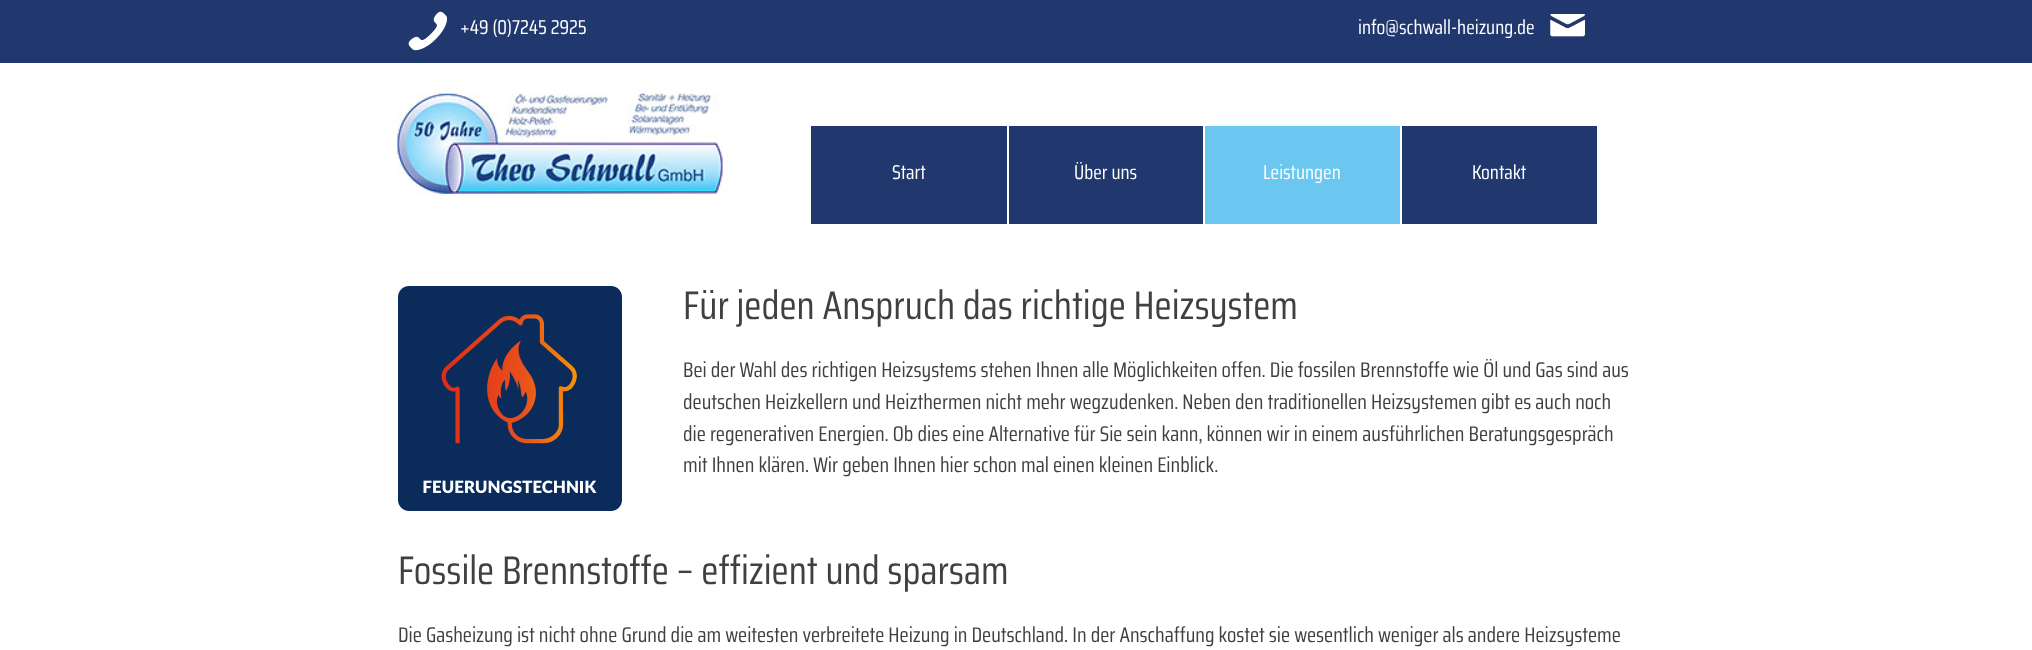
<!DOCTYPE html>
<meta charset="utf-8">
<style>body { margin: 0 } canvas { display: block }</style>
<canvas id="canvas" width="2032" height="650"></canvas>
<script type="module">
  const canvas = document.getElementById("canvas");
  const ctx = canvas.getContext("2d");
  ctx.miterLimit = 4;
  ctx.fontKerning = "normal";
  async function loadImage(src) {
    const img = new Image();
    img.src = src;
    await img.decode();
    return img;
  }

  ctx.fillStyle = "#ffffff";
  ctx.fillRect(0, 0, 2032, 650);
  ctx.fillStyle = "#21386e";
  ctx.fillRect(0, 0, 2032, 63);
  ctx.drawImage(await loadImage("img1.png"), 408, 11, 40, 40);
  ctx.font = "20px Saira Condensed";
  ctx.fillStyle = "#ffffff";
  ctx.fillText("+49 (0)7245 2925", 460, 34);
  ctx.fillText("info@schwall-heizung.de", 1358, 34);
  ctx.drawImage(await loadImage("img2.png"), 1550, 14, 35, 23);
  ctx.drawImage(await loadImage("img3.png"), 397, 93, 326, 101);
  ctx.fillStyle = "#21386e";
  ctx.fillRect(811, 126, 196, 98);
  ctx.fillStyle = "#ffffff";
  ctx.fillText("Start", 892, 179);
  ctx.fillStyle = "#21386e";
  ctx.fillRect(1009, 126, 194, 98);
  ctx.fillStyle = "#ffffff";
  ctx.fillText("Über uns", 1074, 179);
  ctx.fillStyle = "#6cc7f0";
  ctx.fillRect(1205, 126, 195, 98);
  ctx.fillStyle = "#ffffff";
  ctx.fillText("Leistungen", 1263, 179);
  ctx.fillStyle = "#21386e";
  ctx.fillRect(1402, 126, 195, 98);
  ctx.fillStyle = "#ffffff";
  ctx.fillText("Kontakt", 1472, 179);
  ctx.drawImage(await loadImage("img4.png"), 398, 286, 224, 225);
  ctx.font = "40px Saira Condensed";
  ctx.fillStyle = "#404040";
  ctx.fillText("Für jeden Anspruch das richtige Heizsystem", 683, 319);
  ctx.font = "21.25px Saira Condensed";
  ctx.fillText("Bei der Wahl des richtigen Heizsystems stehen Ihnen alle Möglichkeiten offen. Die fossilen Brennstoffe wie Öl und Gas sind aus", 683, 377);
  ctx.fillText("deutschen Heizkellern und Heizthermen nicht mehr wegzudenken. Neben den traditionellen Heizsystemen gibt es auch noch", 683, 409);
  ctx.fillText("die regenerativen Energien. Ob dies eine Alternative für Sie sein kann, können wir in einem ausführlichen Beratungsgespräch", 683, 441);
  ctx.fillText("mit Ihnen klären. Wir geben Ihnen hier schon mal einen kleinen Einblick.", 683, 472);
  ctx.font = "40px Saira Condensed";
  ctx.fillText("Fossile Brennstoffe – effizient und sparsam", 398, 584);
  ctx.font = "21.25px Saira Condensed";
  ctx.fillText("Die Gasheizung ist nicht ohne Grund die am weitesten verbreitete Heizung in Deutschland. In der Anschaffung kostet sie wesentlich weniger als andere Heizsysteme", 398, 642);
</script>
